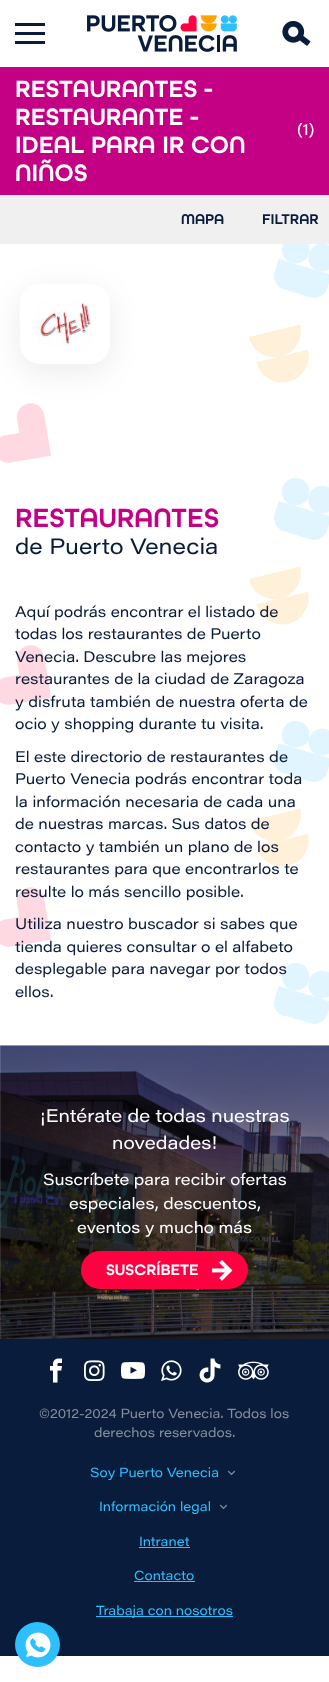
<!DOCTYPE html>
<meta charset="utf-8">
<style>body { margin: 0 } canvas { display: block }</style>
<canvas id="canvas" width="329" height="1682"></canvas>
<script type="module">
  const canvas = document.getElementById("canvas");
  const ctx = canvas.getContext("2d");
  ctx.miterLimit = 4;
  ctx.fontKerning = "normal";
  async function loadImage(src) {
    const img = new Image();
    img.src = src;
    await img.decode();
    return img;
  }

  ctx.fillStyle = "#ffffff";
  ctx.fillRect(0, 0, 329, 1682);
  ctx.fillStyle = "#0a1c3b";
  ctx.fillRect(15, 23, 30, 3);
  ctx.fillRect(15, 32, 30, 3);
  ctx.fillRect(15, 41, 30, 3);
  ctx.drawImage(await loadImage("img1.png"), 87, 15, 150, 37);
  ctx.drawImage(await loadImage("img2.png"), 282, 20, 29, 26);
  ctx.drawImage(await loadImage("img3.png"), 0, 244, 329, 780);
  ctx.fillStyle = "#c40085";
  ctx.fillRect(0, 67, 329, 128);
  ctx.font = "25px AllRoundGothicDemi";
  ctx.fillStyle = "#ffffff";
  ctx.fillText("RESTAURANTES -", 15, 97);
  ctx.fillText("RESTAURANTE -", 15, 125);
  ctx.fillText("IDEAL PARA IR CON", 15, 153);
  ctx.fillText("NIÑOS", 15, 181);
  ctx.font = "16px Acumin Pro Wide";
  ctx.fillText("(1)", 297, 135);
  ctx.fillStyle = "#f0f0f0";
  ctx.fillRect(0, 195, 329, 49);
  ctx.font = "15px AllRoundGothicDemi";
  ctx.fillStyle = "#0a1c3b";
  ctx.fillText("MAPA", 181, 224);
  ctx.fillText("FILTRAR", 262, 224);
  ctx.fillStyle = "rgba(0, 0, 0, 0.08)";
  ctx.filter = "blur(15px)";
  ctx.beginPath();
  ctx.roundRect(20, 292, 90, 80, 20);
  ctx.fill();
  ctx.filter = "none";
  ctx.fillStyle = "#ffffff";
  ctx.beginPath();
  ctx.roundRect(20, 284, 90, 80, 20);
  ctx.fill();
  ctx.drawImage(await loadImage("img4.png"), 37, 301, 54, 46);
  ctx.font = "28px AllRoundGothicDemi";
  ctx.fillStyle = "#c40085";
  ctx.fillText("RESTAURANTES", 15, 527);
  ctx.font = "22px Acumin Pro Wide";
  ctx.fillStyle = "#0a1c3b";
  ctx.fillText("de Puerto Venecia", 15, 554);
  ctx.font = "15px Acumin Pro Wide";
  ctx.fillText("Aquí podrás encontrar el listado de", 15, 617);
  ctx.fillText("todas los restaurantes de Puerto", 15, 639);
  ctx.fillText("Venecia. Descubre las mejores", 15, 662);
  ctx.fillText("restaurantes de la ciudad de Zaragoza", 15, 684);
  ctx.fillText("y disfruta también de nuestra oferta de", 15, 707);
  ctx.fillText("ocio y shopping durante tu visita.", 15, 729);
  ctx.fillText("El este directorio de restaurantes de", 15, 762);
  ctx.fillText("Puerto Venecia podrás encontrar toda", 15, 784);
  ctx.fillText("la información necesaria de cada una", 15, 807);
  ctx.fillText("de nuestras marcas. Sus datos de", 15, 829);
  ctx.fillText("contacto y también un plano de los", 15, 852);
  ctx.fillText("restaurantes para que encontrarlos te", 15, 874);
  ctx.fillText("resulte lo más sencillo posible.", 15, 897);
  ctx.fillText("Utiliza nuestro buscador si sabes que", 15, 929);
  ctx.fillText("tienda quieres consultar o el alfabeto", 15, 952);
  ctx.fillText("desplegable para navegar por todos", 15, 974);
  ctx.fillText("ellos.", 15, 997);
  ctx.fillRect(0, 1339, 329, 317);
  ctx.fillStyle = "#2ebfff";
  ctx.beginPath();
  ctx.arc(37.5, 1644.5, 22.5, 0, Math.PI * 2);
  ctx.fill();
  ctx.drawImage(await loadImage("img5.png"), 25, 1632, 26, 26);
  ctx.drawImage(await loadImage("img6.png"), 0, 1045, 329, 294);
  ctx.font = "18px Acumin Pro Wide";
  ctx.fillStyle = "#ffffff";
  ctx.fillText("¡Entérate de todas nuestras", 40, 1122);
  ctx.fillText("novedades!", 112, 1149);
  ctx.font = "16px Acumin Pro Wide";
  ctx.fillText("Suscríbete para recibir ofertas", 43, 1185);
  ctx.fillText("especiales, descuentos,", 69, 1209);
  ctx.fillText("eventos y mucho más", 77, 1233);
  ctx.fillStyle = "#ff0040";
  ctx.beginPath();
  ctx.roundRect(81, 1251, 167, 38, 19);
  ctx.fill();
  ctx.drawImage(await loadImage("img7.png"), 212, 1260, 21, 21);
  ctx.font = "16px AllRoundGothicDemi";
  ctx.fillStyle = "#ffffff";
  ctx.fillText("SUSCRÍBETE", 106, 1275);
  ctx.drawImage(await loadImage("img8.png"), 50, 1358, 12, 25);
  ctx.drawImage(await loadImage("img9.png"), 84, 1360, 21, 21);
  ctx.drawImage(await loadImage("img10.png"), 121, 1362, 24, 17);
  ctx.drawImage(await loadImage("img11.png"), 161, 1360, 21, 21);
  ctx.drawImage(await loadImage("img12.png"), 199, 1358, 22, 25);
  ctx.drawImage(await loadImage("img13.png"), 238, 1361, 31, 19);
  ctx.font = "13px Acumin Pro Wide";
  ctx.fillStyle = "#858e9d";
  ctx.fillText("©2012-2024 Puerto Venecia. Todos los", 39, 1418);
  ctx.fillText("derechos reservados.", 94, 1437);
  ctx.fillStyle = "#2ebfff";
  ctx.fillText("Soy Puerto Venecia", 90, 1477);
  ctx.drawImage(await loadImage("img14.png"), 227, 1470, 9, 6);
  ctx.fillText("Información legal", 99, 1511);
  ctx.drawImage(await loadImage("img14.png"), 219, 1504, 9, 6);
  ctx.fillText("Intranet", 139, 1546);
  ctx.fillRect(139, 1547, 51, 1);
  ctx.fillText("Contacto", 134, 1580);
  ctx.fillRect(134, 1581, 61, 1);
  ctx.fillRect(96, 1616, 137, 1);
  ctx.fillText("Trabaja con nosotros", 96, 1615);
</script>
